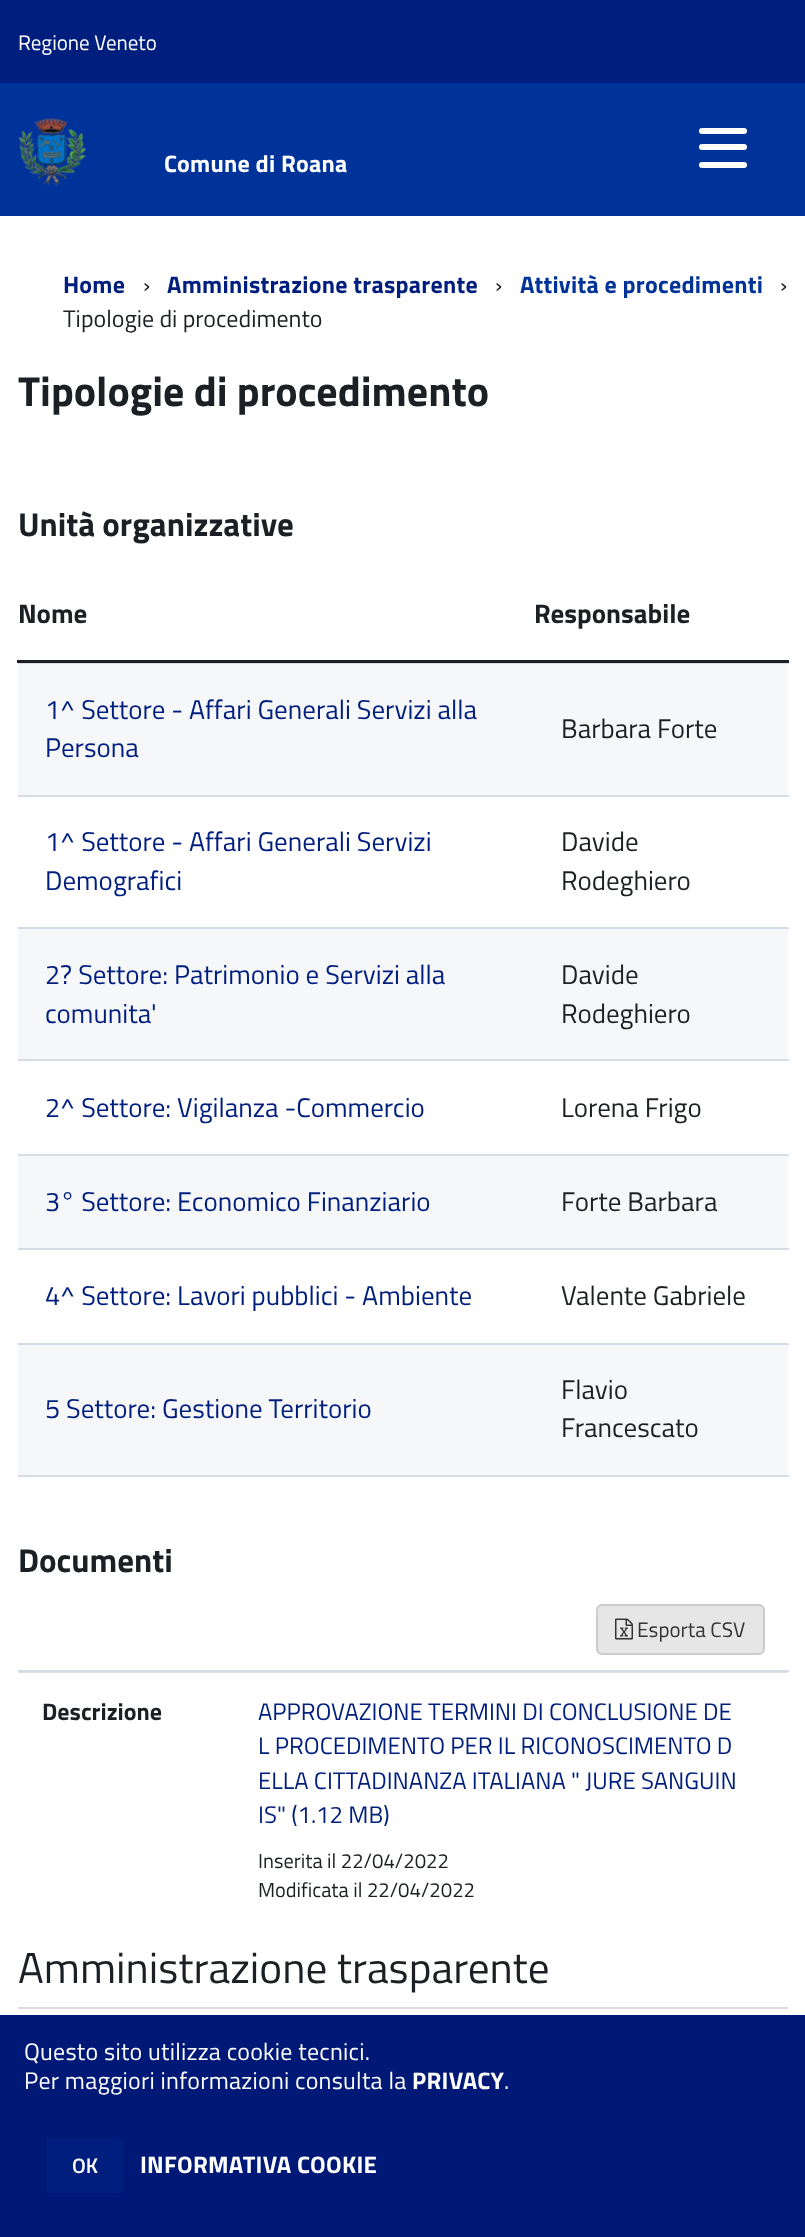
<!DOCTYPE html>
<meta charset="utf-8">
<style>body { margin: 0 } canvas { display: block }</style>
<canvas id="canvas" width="805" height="2237"></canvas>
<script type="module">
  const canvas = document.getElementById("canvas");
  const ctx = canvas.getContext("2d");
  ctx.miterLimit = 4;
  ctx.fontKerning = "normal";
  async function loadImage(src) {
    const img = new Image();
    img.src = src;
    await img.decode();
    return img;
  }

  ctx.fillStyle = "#ffffff";
  ctx.fillRect(0, 0, 805, 2237);
  ctx.fillStyle = "#001e7e";
  ctx.fillRect(0, 0, 805, 83);
  ctx.font = "21px Titillium Web";
  ctx.fillStyle = "#ffffff";
  ctx.fillText("Regione Veneto", 18, 50);
  ctx.fillStyle = "#003399";
  ctx.fillRect(0, 83, 805, 133);
  ctx.drawImage(await loadImage("img1.png"), 18, 118, 68, 68);
  ctx.letterSpacing = "0.25px";
  ctx.font = "bold 24px Titillium Web";
  ctx.fillStyle = "#ffffff";
  ctx.fillText("Comune di Roana", 164, 172);
  ctx.beginPath();
  ctx.roundRect(699, 144, 48, 6, 3);
  ctx.fill();
  ctx.beginPath();
  ctx.roundRect(699, 128, 48, 6, 3);
  ctx.fill();
  ctx.beginPath();
  ctx.roundRect(699, 162, 48, 6, 3);
  ctx.fill();
  ctx.fillStyle = "#001e7e";
  ctx.fillText("Home", 63, 293);
  ctx.letterSpacing = "0px";
  ctx.font = "24px Titillium Web";
  ctx.fillStyle = "#1c2024";
  ctx.fillText("›", 143, 293);
  ctx.letterSpacing = "0.25px";
  ctx.font = "bold 24px Titillium Web";
  ctx.fillStyle = "#001e7e";
  ctx.fillText("Amministrazione trasparente", 167, 293);
  ctx.letterSpacing = "0px";
  ctx.font = "24px Titillium Web";
  ctx.fillStyle = "#1c2024";
  ctx.fillText("›", 495, 293);
  ctx.letterSpacing = "0.25px";
  ctx.font = "bold 24px Titillium Web";
  ctx.fillStyle = "#003399";
  ctx.fillText("Attività e procedimenti", 520, 293);
  ctx.letterSpacing = "0px";
  ctx.font = "24px Titillium Web";
  ctx.fillStyle = "#1c2024";
  ctx.fillText("›", 780, 293);
  ctx.fillText("Tipologie di procedimento", 63, 327);
  ctx.font = "bold 42px Titillium Web";
  ctx.fillText("Tipologie di procedimento", 18, 406);
  ctx.font = "bold 33px Titillium Web";
  ctx.fillText("Unità organizzative", 18, 536);
  ctx.fillStyle = "#d6dce3";
  ctx.fillRect(18, 663, 771, 1);
  ctx.font = "bold 27px Titillium Web";
  ctx.fillStyle = "#1c2024";
  ctx.fillText("Nome", 18, 623);
  ctx.fillRect(17, 660, 772, 3);
  ctx.fillText("Responsabile", 534, 623);
  ctx.fillStyle = "#f6f7f9";
  ctx.fillRect(18, 664, 770, 131);
  ctx.fillStyle = "#d6dce3";
  ctx.fillRect(18, 795, 771, 2);
  ctx.font = "27px Titillium Web";
  ctx.fillStyle = "#001e7e";
  ctx.fillText("1^ Settore - Affari Generali Servizi alla", 45, 719);
  ctx.fillText("Persona", 45, 757);
  ctx.fillStyle = "#1c2024";
  ctx.fillText("Barbara Forte", 561, 738);
  ctx.fillStyle = "#d6dce3";
  ctx.fillRect(18, 927, 771, 2);
  ctx.fillStyle = "#001e7e";
  ctx.fillText("1^ Settore - Affari Generali Servizi", 45, 851);
  ctx.fillText("Demografici", 45, 890);
  ctx.fillStyle = "#1c2024";
  ctx.fillText("Davide", 561, 851);
  ctx.fillText("Rodeghiero", 561, 890);
  ctx.fillStyle = "#f6f7f9";
  ctx.fillRect(18, 929, 770, 130);
  ctx.fillStyle = "#d6dce3";
  ctx.fillRect(18, 1059, 771, 2);
  ctx.fillStyle = "#001e7e";
  ctx.fillText("2? Settore: Patrimonio e Servizi alla", 45, 984);
  ctx.fillText("comunita'", 45, 1023);
  ctx.fillStyle = "#1c2024";
  ctx.fillText("Davide", 561, 984);
  ctx.fillText("Rodeghiero", 561, 1023);
  ctx.fillStyle = "#d6dce3";
  ctx.fillRect(18, 1154, 771, 2);
  ctx.fillStyle = "#001e7e";
  ctx.fillText("2^ Settore: Vigilanza -Commercio", 45, 1117);
  ctx.fillStyle = "#1c2024";
  ctx.fillText("Lorena Frigo", 561, 1117);
  ctx.fillStyle = "#f6f7f9";
  ctx.fillRect(18, 1156, 770, 92);
  ctx.fillStyle = "#d6dce3";
  ctx.fillRect(18, 1248, 771, 2);
  ctx.fillStyle = "#001e7e";
  ctx.fillText("3° Settore: Economico Finanziario", 45, 1211);
  ctx.fillStyle = "#1c2024";
  ctx.fillText("Forte Barbara", 561, 1211);
  ctx.fillStyle = "#d6dce3";
  ctx.fillRect(18, 1343, 771, 2);
  ctx.fillStyle = "#001e7e";
  ctx.fillText("4^ Settore: Lavori pubblici - Ambiente", 45, 1305);
  ctx.fillStyle = "#1c2024";
  ctx.fillText("Valente Gabriele", 561, 1305);
  ctx.fillStyle = "#f6f7f9";
  ctx.fillRect(18, 1345, 770, 130);
  ctx.fillStyle = "#d6dce3";
  ctx.fillRect(18, 1475, 771, 2);
  ctx.fillStyle = "#001e7e";
  ctx.fillText("5 Settore: Gestione Territorio", 45, 1418);
  ctx.fillStyle = "#1c2024";
  ctx.fillText("Flavio", 561, 1399);
  ctx.fillText("Francescato", 561, 1437);
  ctx.font = "bold 33px Titillium Web";
  ctx.fillText("Documenti", 18, 1572);
  ctx.fillStyle = "#e6e6e6";
  ctx.beginPath();
  ctx.roundRect(597, 1605, 167, 49, 5);
  ctx.fill();
  ctx.strokeStyle = "#cccccc";
  ctx.lineWidth = 2;
  ctx.stroke();
  ctx.drawImage(await loadImage("img2.png"), 615, 1618, 18, 22);
  ctx.font = "21px Titillium Web";
  ctx.fillStyle = "#333333";
  ctx.fillText("Esporta CSV", 637, 1637);
  ctx.fillStyle = "#d6dce3";
  ctx.fillRect(18, 1670, 771, 2);
  ctx.fillStyle = "#dfdfdf";
  ctx.fillRect(18, 1672, 770, 1);
  ctx.font = "bold 24px Titillium Web";
  ctx.fillStyle = "#1c2024";
  ctx.fillText("Descrizione", 42, 1720);
  ctx.font = "24px Titillium Web";
  ctx.fillStyle = "#001e7e";
  ctx.fillText("APPROVAZIONE TERMINI DI CONCLUSIONE DE", 258, 1720);
  ctx.fillText("L PROCEDIMENTO PER IL RICONOSCIMENTO D", 258, 1754);
  ctx.fillText("ELLA CITTADINANZA ITALIANA \" JURE SANGUIN", 258, 1789);
  ctx.fillText("IS\" (1.12 MB)", 258, 1823);
  ctx.font = "20.4px Titillium Web";
  ctx.fillStyle = "#1c2024";
  ctx.fillText("Inserita il 22/04/2022", 258, 1868);
  ctx.fillText("Modificata il 22/04/2022", 258, 1897);
  ctx.font = "43.25px Titillium Web";
  ctx.fillText("Amministrazione trasparente", 18, 1983);
  ctx.fillStyle = "#dddddd";
  ctx.fillRect(18, 2007, 770, 2);
  ctx.fillStyle = "#001977";
  ctx.fillRect(0, 2015, 805, 222);
  ctx.letterSpacing = "0.25px";
  ctx.font = "24px Titillium Web";
  ctx.fillStyle = "#ffffff";
  ctx.fillText("Questo sito utilizza cookie tecnici.", 24, 2060);
  ctx.fillText("Per maggiori informazioni consulta la", 24, 2089);
  ctx.font = "bold 24px Titillium Web";
  ctx.fillText("PRIVACY", 412, 2089);
  ctx.font = "24px Titillium Web";
  ctx.fillText(".", 504, 2089);
  ctx.fillStyle = "#001e7e";
  ctx.fillRect(47, 2138, 76, 55);
  ctx.letterSpacing = "0px";
  ctx.font = "600 21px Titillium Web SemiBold";
  ctx.fillStyle = "#ffffff";
  ctx.fillText("OK", 72, 2173);
  ctx.letterSpacing = "0.25px";
  ctx.font = "bold 24px Titillium Web";
  ctx.fillText("INFORMATIVA COOKIE", 140, 2173);
</script>
